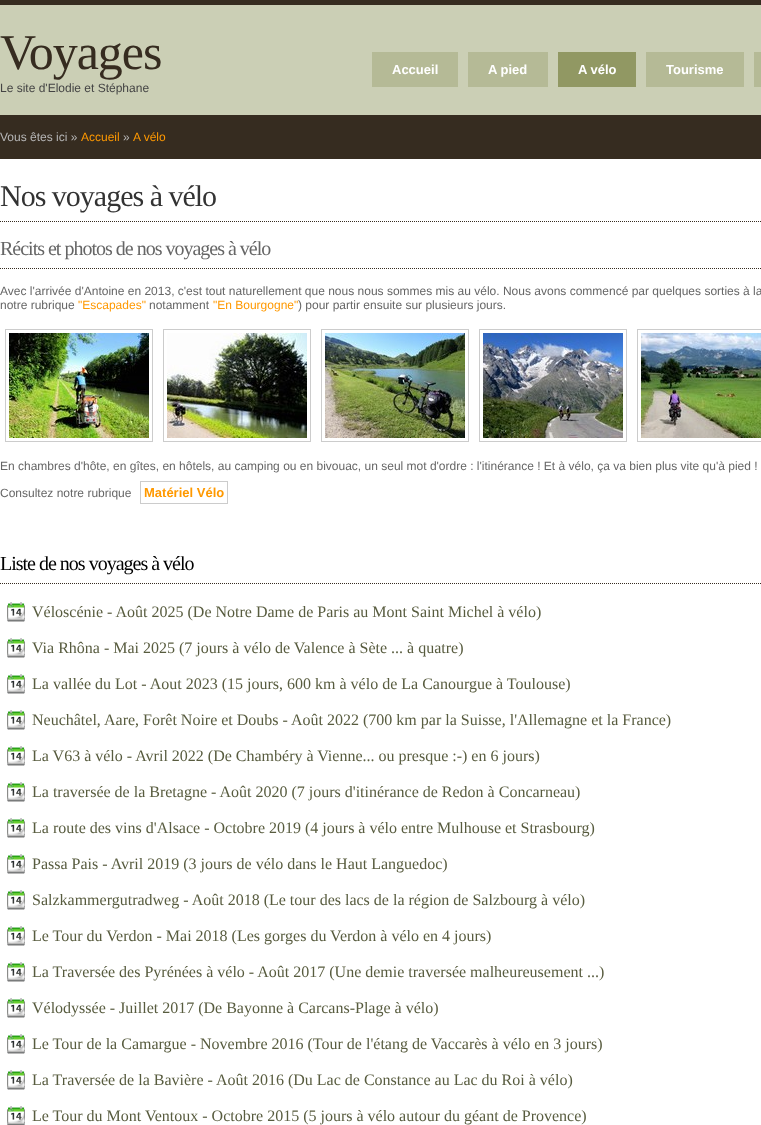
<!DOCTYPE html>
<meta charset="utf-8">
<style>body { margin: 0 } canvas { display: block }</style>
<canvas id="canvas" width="761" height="1125"></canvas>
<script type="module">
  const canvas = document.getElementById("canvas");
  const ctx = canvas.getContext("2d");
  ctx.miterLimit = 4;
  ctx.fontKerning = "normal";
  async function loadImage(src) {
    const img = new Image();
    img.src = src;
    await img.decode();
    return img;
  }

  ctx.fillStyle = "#cbcfb5";
  ctx.fillRect(0, 0, 761, 1125);
  ctx.fillStyle = "#362c20";
  ctx.fillRect(0, 0, 761, 5);
  ctx.letterSpacing = "-1px";
  ctx.font = "50px Liberation Serif";
  ctx.fillText("Voyages", 0, 69);
  ctx.letterSpacing = "0px";
  ctx.font = "12px Liberation Sans";
  ctx.fillStyle = "#444444";
  ctx.fillText("Le site d'Elodie et Stéphane", 0, 92);
  ctx.fillStyle = "#b5ba96";
  ctx.fillRect(372, 52, 86, 35);
  ctx.font = "bold 13px Liberation Sans";
  ctx.fillStyle = "#ffffff";
  ctx.fillText("Accueil", 392, 74);
  ctx.fillStyle = "#b5ba96";
  ctx.fillRect(468, 52, 80, 35);
  ctx.fillStyle = "#ffffff";
  ctx.fillText("A pied", 488, 74);
  ctx.fillStyle = "#919863";
  ctx.fillRect(558, 52, 78, 35);
  ctx.fillStyle = "#ffffff";
  ctx.fillText("A vélo", 578, 74);
  ctx.fillStyle = "#b5ba96";
  ctx.fillRect(646, 52, 98, 35);
  ctx.fillStyle = "#ffffff";
  ctx.fillText("Tourisme", 666, 74);
  ctx.fillStyle = "#b5ba96";
  ctx.fillRect(754, 52, 7, 35);
  ctx.fillStyle = "#362c20";
  ctx.fillRect(0, 115, 761, 44);
  ctx.font = "12px Liberation Sans";
  ctx.fillStyle = "#b6b6b6";
  ctx.fillText("Vous êtes ici »", 0, 141);
  ctx.fillStyle = "#ff9900";
  ctx.fillText("Accueil", 81, 141);
  ctx.fillStyle = "#b6b6b6";
  ctx.fillText("»", 123, 141);
  ctx.fillStyle = "#ff9900";
  ctx.fillText("A vélo", 133, 141);
  ctx.fillStyle = "#ffffff";
  ctx.fillRect(0, 159, 761, 966);
  ctx.beginPath();
  ctx.moveTo(0, 221.5);
  ctx.lineTo(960, 221.5);
  ctx.strokeStyle = "#362c20";
  ctx.setLineDash([1, 1]);
  ctx.stroke();
  ctx.letterSpacing = "-1px";
  ctx.font = "30px Liberation Serif";
  ctx.fillStyle = "#333333";
  ctx.fillText("Nos voyages à vélo", 0, 206);
  ctx.beginPath();
  ctx.moveTo(0, 268.5);
  ctx.lineTo(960, 268.5);
  ctx.stroke();
  ctx.font = "20px Liberation Serif";
  ctx.fillStyle = "#666666";
  ctx.fillText("Récits et photos de nos voyages à vélo", 0, 255);
  ctx.letterSpacing = "0px";
  ctx.font = "12px Liberation Sans";
  ctx.fillText("Avec l'arrivée d'Antoine en 2013, c'est tout naturellement que nous nous sommes mis au vélo. Nous avons commencé par quelques sorties à la", 0, 295);
  ctx.fillText("notre rubrique", 0, 309);
  ctx.fillStyle = "#ff9900";
  ctx.fillText("\"Escapades\"", 78, 309);
  ctx.fillStyle = "#666666";
  ctx.fillText("notamment", 149, 309);
  ctx.fillStyle = "#ff9900";
  ctx.fillText("\"En Bourgogne\"", 213, 309);
  ctx.fillStyle = "#666666";
  ctx.fillText(") pour partir ensuite sur plusieurs jours.", 298, 309);
  ctx.strokeStyle = "#cccccc";
  ctx.setLineDash([]);
  ctx.strokeRect(5.5, 329.5, 147, 112);
  ctx.strokeRect(163.5, 329.5, 147, 112);
  ctx.strokeRect(321.5, 329.5, 147, 112);
  ctx.strokeRect(479.5, 329.5, 147, 112);
  ctx.strokeRect(637.5, 329.5, 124, 112);
  ctx.drawImage(await loadImage("img1.png"), 9, 333, 140, 105);
  ctx.drawImage(await loadImage("img2.png"), 167, 333, 140, 105);
  ctx.drawImage(await loadImage("img3.png"), 325, 333, 140, 105);
  ctx.drawImage(await loadImage("img4.png"), 483, 333, 140, 105);
  ctx.drawImage(await loadImage("img5.png"), 641, 333, 120, 105);
  ctx.fillText("En chambres d'hôte, en gîtes, en hôtels, au camping ou en bivouac, un seul mot d'ordre : l'itinérance ! Et à vélo, ça va bien plus vite qu'à pied !", 0, 470);
  ctx.fillText("Consultez notre rubrique", 0, 497);
  ctx.strokeRect(140.5, 481.5, 87, 22);
  ctx.font = "bold 13px Liberation Sans";
  ctx.fillStyle = "#ff9900";
  ctx.fillText("Matériel Vélo", 144, 497);
  ctx.beginPath();
  ctx.moveTo(0, 583.5);
  ctx.lineTo(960, 583.5);
  ctx.strokeStyle = "#362c20";
  ctx.setLineDash([1, 1]);
  ctx.stroke();
  ctx.letterSpacing = "-1px";
  ctx.font = "20px Liberation Serif";
  ctx.fillStyle = "#000000";
  ctx.fillText("Liste de nos voyages à vélo", 0, 570);
  ctx.drawImage(await loadImage("img6.png"), 7, 602, 18, 20);
  ctx.letterSpacing = "0px";
  ctx.font = "16px Liberation Serif";
  ctx.fillStyle = "#585c3f";
  ctx.fillText("Véloscénie - Août 2025 (De Notre Dame de Paris au Mont Saint Michel à vélo)", 32, 617);
  ctx.drawImage(await loadImage("img6.png"), 7, 638, 18, 20);
  ctx.fillText("Via Rhôna - Mai 2025 (7 jours à vélo de Valence à Sète ... à quatre)", 32, 653);
  ctx.drawImage(await loadImage("img6.png"), 7, 674, 18, 20);
  ctx.fillText("La vallée du Lot - Aout 2023 (15 jours, 600 km à vélo de La Canourgue à Toulouse)", 32, 689);
  ctx.drawImage(await loadImage("img6.png"), 7, 710, 18, 20);
  ctx.fillText("Neuchâtel, Aare, Forêt Noire et Doubs - Août 2022 (700 km par la Suisse, l'Allemagne et la France)", 32, 725);
  ctx.drawImage(await loadImage("img6.png"), 7, 746, 18, 20);
  ctx.fillText("La V63 à vélo - Avril 2022 (De Chambéry à Vienne... ou presque :-) en 6 jours)", 32, 761);
  ctx.drawImage(await loadImage("img6.png"), 7, 782, 18, 20);
  ctx.fillText("La traversée de la Bretagne - Août 2020 (7 jours d'itinérance de Redon à Concarneau)", 32, 797);
  ctx.drawImage(await loadImage("img6.png"), 7, 818, 18, 20);
  ctx.fillText("La route des vins d'Alsace - Octobre 2019 (4 jours à vélo entre Mulhouse et Strasbourg)", 32, 833);
  ctx.drawImage(await loadImage("img6.png"), 7, 854, 18, 20);
  ctx.fillText("Passa Pais - Avril 2019 (3 jours de vélo dans le Haut Languedoc)", 32, 869);
  ctx.drawImage(await loadImage("img6.png"), 7, 890, 18, 20);
  ctx.fillText("Salzkammergutradweg - Août 2018 (Le tour des lacs de la région de Salzbourg à vélo)", 32, 905);
  ctx.drawImage(await loadImage("img6.png"), 7, 926, 18, 20);
  ctx.fillText("Le Tour du Verdon - Mai 2018 (Les gorges du Verdon à vélo en 4 jours)", 32, 941);
  ctx.drawImage(await loadImage("img6.png"), 7, 962, 18, 20);
  ctx.fillText("La Traversée des Pyrénées à vélo - Août 2017 (Une demie traversée malheureusement ...)", 32, 977);
  ctx.drawImage(await loadImage("img6.png"), 7, 998, 18, 20);
  ctx.fillText("Vélodyssée - Juillet 2017 (De Bayonne à Carcans-Plage à vélo)", 32, 1013);
  ctx.drawImage(await loadImage("img6.png"), 7, 1034, 18, 20);
  ctx.fillText("Le Tour de la Camargue - Novembre 2016 (Tour de l'étang de Vaccarès à vélo en 3 jours)", 32, 1049);
  ctx.drawImage(await loadImage("img6.png"), 7, 1070, 18, 20);
  ctx.fillText("La Traversée de la Bavière - Août 2016 (Du Lac de Constance au Lac du Roi à vélo)", 32, 1085);
  ctx.drawImage(await loadImage("img7.png"), 7, 1106, 18, 19);
  ctx.fillText("Le Tour du Mont Ventoux - Octobre 2015 (5 jours à vélo autour du géant de Provence)", 32, 1121);
</script>
